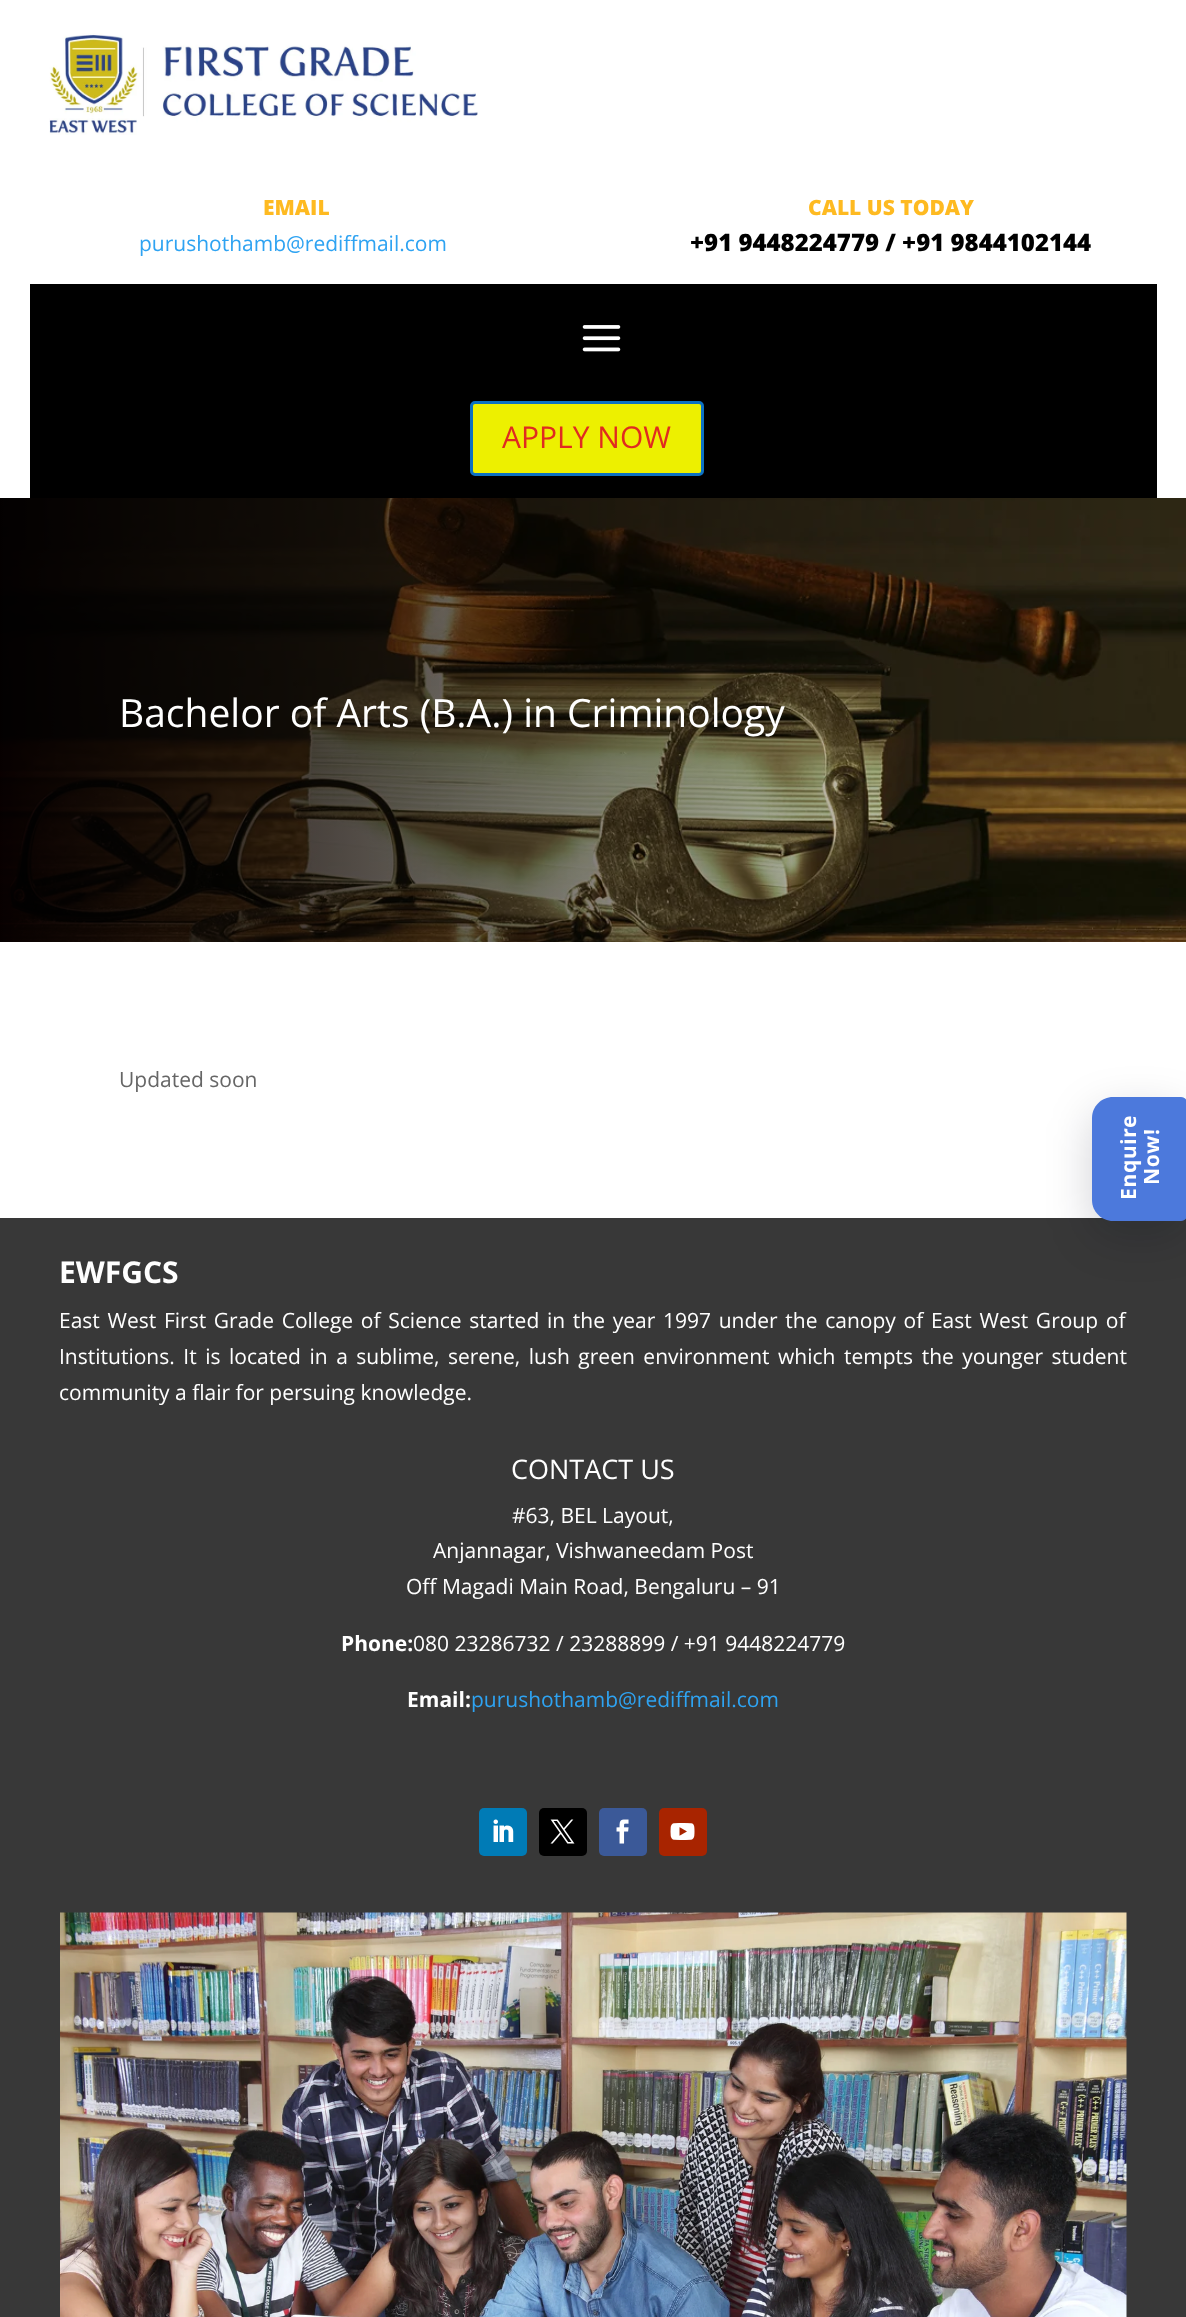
<!DOCTYPE html>
<meta charset="utf-8">
<style>body { margin: 0 } canvas { display: block }</style>
<canvas id="canvas" width="1186" height="2317"></canvas>
<script type="module">
  const canvas = document.getElementById("canvas");
  const ctx = canvas.getContext("2d");
  ctx.miterLimit = 4;
  ctx.fontKerning = "normal";
  async function loadImage(src) {
    const img = new Image();
    img.src = src;
    await img.decode();
    return img;
  }

  ctx.fillStyle = "#ffffff";
  ctx.fillRect(0, 0, 1186, 2317);
  ctx.drawImage(await loadImage("img1.png"), 49, 33, 429, 102);
  ctx.font = "800 21px Open Sans";
  ctx.fillStyle = "#feba21";
  ctx.fillText("EMAIL", 263, 215);
  ctx.font = "21px Open Sans";
  ctx.fillStyle = "#2ea3f2";
  ctx.fillText("purushothamb@rediffmail.com", 139, 251);
  ctx.font = "800 21px Open Sans";
  ctx.fillStyle = "#feba21";
  ctx.fillText("CALL US TODAY", 808, 215);
  ctx.font = "800 24px Open Sans";
  ctx.fillStyle = "#000000";
  ctx.fillText("+91 9448224779 / +91 9844102144", 690, 251);
  ctx.fillRect(30, 284, 1127, 214);
  ctx.drawImage(await loadImage("img2.png"), 582, 325, 39, 27);
  ctx.fillStyle = "#edf000";
  ctx.beginPath();
  ctx.roundRect(471.5, 402.5, 231, 72, 3.5);
  ctx.fill();
  ctx.strokeStyle = "#0c71c3";
  ctx.lineWidth = 3;
  ctx.stroke();
  ctx.font = "30px Open Sans";
  ctx.fillStyle = "#e02b20";
  ctx.fillText("APPLY NOW", 502, 448);
  ctx.drawImage(await loadImage("img3.png"), 0, 498, 1186, 444);
  ctx.font = "39px Open Sans";
  ctx.fillStyle = "#ffffff";
  ctx.fillText("Bachelor of Arts (B.A.) in Criminology", 119, 727);
  ctx.font = "21px Open Sans";
  ctx.fillStyle = "#666666";
  ctx.fillText("Updated soon", 119, 1087);
  ctx.fillStyle = "#383838";
  ctx.fillRect(0, 1218, 1186, 1099);
  ctx.fillStyle = "rgba(2, 8, 23, 0.18)";
  ctx.filter = "blur(22.5px)";
  ctx.beginPath();
  ctx.roundRect(1092, 1112, 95, 124, 21);
  ctx.fill();
  ctx.filter = "none";
  ctx.fillStyle = "#4c79dc";
  ctx.beginPath();
  ctx.moveTo(1113, 1097);
  ctx.lineTo(1181, 1097);
  ctx.bezierCurveTo(1184.5, 1097, 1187, 1099.5, 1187, 1103);
  ctx.lineTo(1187, 1215);
  ctx.bezierCurveTo(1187, 1218.5, 1184.5, 1221, 1181, 1221);
  ctx.lineTo(1113, 1221);
  ctx.bezierCurveTo(1101.5, 1221, 1092, 1211.5, 1092, 1200);
  ctx.lineTo(1092, 1118);
  ctx.bezierCurveTo(1092, 1106.5, 1101.5, 1097, 1113, 1097);
  ctx.closePath();
  ctx.fill();
  ctx.letterSpacing = "0.75px";
  ctx.font = "bold 21px Noto Sans";
  ctx.fillStyle = "#ffffff";
  ctx.save();
  ctx.translate(1136, 1200);
  ctx.rotate(-90 * Math.PI / 180);
  ctx.fillText("Enquire", 0, 0);
  ctx.restore();
  ctx.save();
  ctx.translate(1159, 1185);
  ctx.rotate(-90 * Math.PI / 180);
  ctx.fillText("Now!", 0, 0);
  ctx.restore();
  ctx.letterSpacing = "0px";
  ctx.font = "27px Open Sans";
  ctx.fillText("CONTACT US", 511, 1479);
  ctx.font = "21px Open Sans";
  ctx.fillText("#63, BEL Layout,", 512, 1523);
  ctx.fillText("Anjannagar, Vishwaneedam Post", 433, 1558);
  ctx.fillText("Off Magadi Main Road, Bengaluru – 91", 406, 1594);
  ctx.font = "bold 21px Open Sans";
  ctx.fillText("Phone:", 341, 1651);
  ctx.font = "21px Open Sans";
  ctx.fillText("080 23286732 / 23288899 / +91 9448224779", 413, 1651);
  ctx.font = "bold 21px Open Sans";
  ctx.fillText("Email:", 407, 1707);
  ctx.font = "21px Open Sans";
  ctx.fillStyle = "#2ea3f2";
  ctx.fillText("purushothamb@rediffmail.com", 471, 1707);
  ctx.font = "bold 30px Open Sans";
  ctx.fillStyle = "#ffffff";
  ctx.fillText("EWFGCS", 59, 1283);
  ctx.wordSpacing = "2.25px";
  ctx.font = "21px Open Sans";
  ctx.fillText("East West First Grade College of Science started in the year 1997 under the canopy of East West Group of", 59, 1328);
  ctx.wordSpacing = "3.1px";
  ctx.fillText("Institutions. It is located in a sublime, serene, lush green environment which tempts the younger student", 59, 1364);
  ctx.wordSpacing = "0px";
  ctx.fillText("community a flair for persuing knowledge.", 59, 1400);
  ctx.fillStyle = "#007bb6";
  ctx.beginPath();
  ctx.roundRect(479, 1808, 48, 48, 5);
  ctx.fill();
  ctx.drawImage(await loadImage("img4.png"), 493, 1819, 21, 23);
  ctx.fillStyle = "#000000";
  ctx.beginPath();
  ctx.roundRect(539, 1808, 48, 48, 5);
  ctx.fill();
  ctx.drawImage(await loadImage("img5.png"), 550, 1819, 25, 25);
  ctx.fillStyle = "#3b5998";
  ctx.beginPath();
  ctx.roundRect(599, 1808, 48, 48, 5);
  ctx.fill();
  ctx.drawImage(await loadImage("img6.png"), 616, 1819, 13, 25);
  ctx.fillStyle = "#a82400";
  ctx.beginPath();
  ctx.roundRect(659, 1808, 48, 48, 5);
  ctx.fill();
  ctx.drawImage(await loadImage("img7.png"), 670, 1823, 25, 17);
  ctx.drawImage(await loadImage("img8.png"), 60, 1912, 1067, 405);
</script>
